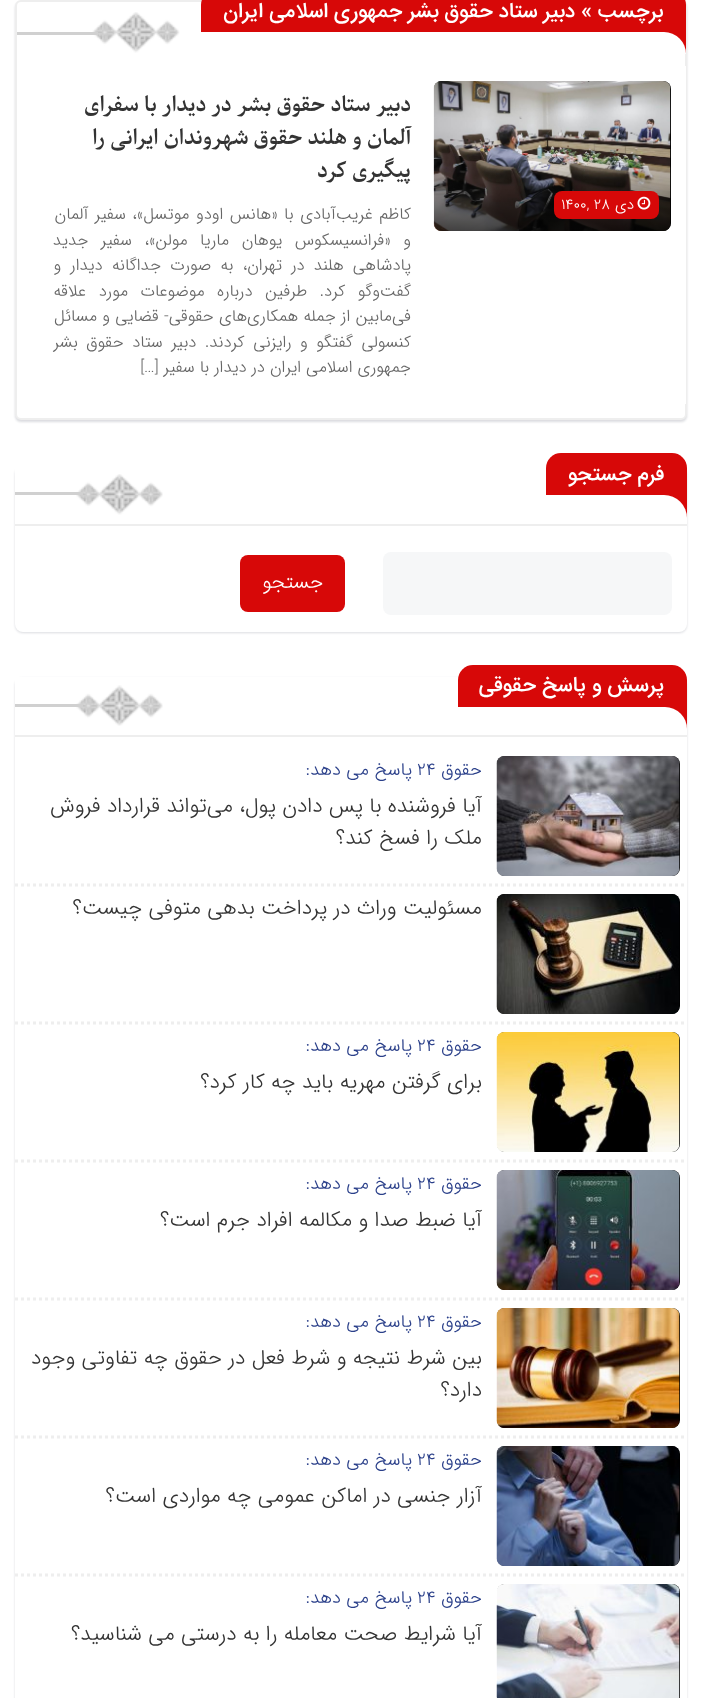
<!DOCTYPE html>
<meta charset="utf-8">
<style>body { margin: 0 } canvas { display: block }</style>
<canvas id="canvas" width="701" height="1698"></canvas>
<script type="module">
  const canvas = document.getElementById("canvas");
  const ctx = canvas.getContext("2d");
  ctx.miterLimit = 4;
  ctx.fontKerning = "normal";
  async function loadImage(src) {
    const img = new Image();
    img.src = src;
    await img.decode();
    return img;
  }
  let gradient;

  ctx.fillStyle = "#ffffff";
  ctx.fillRect(0, 0, 701, 1698);
  ctx.fillStyle = "rgba(28, 37, 64, 0.16)";
  ctx.filter = "blur(1px)";
  ctx.beginPath();
  ctx.roundRect(15, 2, 672, 420, 6);
  ctx.fill();
  ctx.filter = "none";
  ctx.fillStyle = "#ffffff";
  ctx.beginPath();
  ctx.roundRect(16, 1, 670, 418, 5);
  ctx.fill();
  ctx.strokeStyle = "#eeeeee";
  ctx.lineWidth = 2;
  ctx.stroke();
  ctx.fillStyle = "#d70808";
  ctx.beginPath();
  ctx.moveTo(216, -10);
  ctx.lineTo(671, -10);
  ctx.bezierCurveTo(679.5, -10, 686, -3.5, 686, 5);
  ctx.lineTo(686, 54);
  ctx.lineTo(201, 54);
  ctx.lineTo(201, 5);
  ctx.bezierCurveTo(201, -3.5, 207.5, -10, 216, -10);
  ctx.closePath();
  ctx.fill();
  ctx.direction = "rtl";
  ctx.font = "500 21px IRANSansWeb";
  ctx.fillStyle = "#ffffff";
  ctx.fillText("برچسب » دبیر ستاد حقوق بشر جمهوری اسلامی ایران", 663, 17);
  ctx.beginPath();
  ctx.roundRect(201, 32, 485, 22, [0, 22, 0, 0]);
  ctx.fill();
  ctx.drawImage(await loadImage("img1.png"), 92, 12, 88, 41);
  ctx.fillStyle = "#d0d0d0";
  ctx.fillRect(17, 32, 81, 3);
  ctx.fillStyle = "#ffffff";
  ctx.fillRect(685, 66, 1, 338);
  ctx.fillStyle = "#000000";
  ctx.beginPath();
  ctx.roundRect(434, 81, 237, 150, 8);
  ctx.fill();
  ctx.drawImage(await loadImage("img2.png"), 433, 81, 238, 150);
  gradient = ctx.createLinearGradient(552, 231, 552, 161);
  gradient.addColorStop(0, "rgba(0, 0, 0, 0.66)");
  gradient.addColorStop(1, "rgba(0, 0, 0, 0)");
  ctx.fillStyle = gradient;
  ctx.beginPath();
  ctx.roundRect(434, 161, 237, 70, [0, 0, 8, 8]);
  ctx.fill();
  ctx.fillStyle = "#d70808";
  ctx.beginPath();
  ctx.roundRect(554, 191, 105, 28, 8);
  ctx.fill();
  ctx.drawImage(await loadImage("img3.png"), 637, 196, 14, 14);
  ctx.font = "300 15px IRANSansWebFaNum";
  ctx.fillStyle = "#ffffff";
  ctx.fillText("دی", 634, 209);
  ctx.direction = "ltr";
  ctx.fillText("1400, 28", 561, 209);
  ctx.direction = "rtl";
  ctx.font = "bold 21px Parastoo";
  ctx.fillStyle = "#333333";
  ctx.fillText("دبیر ستاد حقوق بشر در دیدار با سفرای", 411, 111);
  ctx.fillText("آلمان و هلند حقوق شهروندان ایرانی را", 411, 144);
  ctx.fillText("پیگیری کرد", 411, 177);
  ctx.wordSpacing = "1.5px";
  ctx.font = "300 16.5px IRANSansWebFaNum";
  ctx.fillStyle = "#666666";
  ctx.fillText("کاظم غریب‌آبادی با «هانس اودو موتسل»، سفیر آلمان", 411, 219);
  ctx.wordSpacing = "7.5px";
  ctx.fillText("و «فرانسیسکوس یوهان ماریا مولن»، سفیر جدید", 411, 245);
  ctx.wordSpacing = "4.25px";
  ctx.fillText("پادشاهی هلند در تهران، به صورت جداگانه دیدار و", 411, 270);
  ctx.wordSpacing = "7.5px";
  ctx.fillText("گفت‌وگو کرد. طرفین درباره موضوعات مورد علاقه", 411, 296);
  ctx.wordSpacing = "0.25px";
  ctx.fillText("فی‌مابین از جمله همکاری‌های حقوقی- قضایی و مسائل", 411, 321);
  ctx.wordSpacing = "3.5px";
  ctx.fillText("کنسولی گفتگو و رایزنی کردند. دبیر ستاد حقوق بشر", 411, 347);
  ctx.wordSpacing = "0px";
  ctx.fillText("جمهوری اسلامی ایران در دیدار با سفیر […]", 411, 372);
  ctx.fillStyle = "rgba(28, 37, 64, 0.16)";
  ctx.filter = "blur(1px)";
  ctx.beginPath();
  ctx.roundRect(15, 467, 672, 166, 8);
  ctx.fill();
  ctx.filter = "none";
  ctx.fillStyle = "#ffffff";
  ctx.beginPath();
  ctx.roundRect(15, 465, 672, 167, [0, 0, 8, 8]);
  ctx.fill();
  ctx.drawImage(await loadImage("img4.png"), 76, 474, 87, 41);
  ctx.fillStyle = "#eeeeee";
  ctx.fillRect(15, 524, 672, 2);
  ctx.fillStyle = "#d70808";
  ctx.beginPath();
  ctx.roundRect(546, 453, 141, 65, [15, 15, 0, 0]);
  ctx.fill();
  ctx.font = "500 21px IRANSansWeb";
  ctx.fillStyle = "#ffffff";
  ctx.fillText("فرم جستجو", 664, 480);
  ctx.beginPath();
  ctx.roundRect(546, 495, 141, 23, [0, 23, 0, 0]);
  ctx.fill();
  ctx.fillStyle = "#d0d0d0";
  ctx.fillRect(15, 492, 68, 3);
  ctx.fillStyle = "#f6f7f8";
  ctx.beginPath();
  ctx.roundRect(383, 552, 289, 63, 8);
  ctx.fill();
  ctx.fillStyle = "#d70808";
  ctx.beginPath();
  ctx.roundRect(240, 555, 105, 57, 8);
  ctx.fill();
  ctx.font = "300 20px IRANSansWeb";
  ctx.fillStyle = "#ffffff";
  ctx.fillText("جستجو", 323, 588);
  ctx.save();
  ctx.beginPath();
  ctx.moveTo(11, 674);
  ctx.lineTo(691, 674);
  ctx.lineTo(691, 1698);
  ctx.lineTo(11, 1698);
  ctx.closePath();
  ctx.moveTo(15, 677);
  ctx.lineTo(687, 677);
  ctx.lineTo(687, 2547);
  ctx.bezierCurveTo(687, 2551.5, 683.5, 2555, 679, 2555);
  ctx.lineTo(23, 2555);
  ctx.bezierCurveTo(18.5, 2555, 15, 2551.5, 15, 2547);
  ctx.closePath();
  ctx.clip("evenodd");
  ctx.fillStyle = "rgba(28, 37, 64, 0.16)";
  ctx.filter = "blur(1px)";
  ctx.beginPath();
  ctx.roundRect(15, 678, 672, 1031, 8);
  ctx.fill();
  ctx.filter = "none";
  ctx.restore();
  ctx.drawImage(await loadImage("img5.png"), 76, 685, 87, 41);
  ctx.fillStyle = "#eeeeee";
  ctx.fillRect(15, 735, 672, 2);
  ctx.fillStyle = "#d70808";
  ctx.beginPath();
  ctx.roundRect(458, 665, 229, 64, [15, 15, 0, 0]);
  ctx.fill();
  ctx.font = "500 21px IRANSansWeb";
  ctx.fillStyle = "#ffffff";
  ctx.fillText("پرسش و پاسخ حقوقی", 664, 691);
  ctx.beginPath();
  ctx.roundRect(458, 707, 229, 22, [0, 22, 0, 0]);
  ctx.fill();
  ctx.fillStyle = "#d0d0d0";
  ctx.fillRect(15, 704, 68, 3);
  ctx.beginPath();
  ctx.moveTo(15, 885);
  ctx.lineTo(687, 885);
  ctx.lineWidth = 3;
  ctx.setLineDash([3, 3]);
  ctx.stroke();
  ctx.fillStyle = "#000000";
  ctx.beginPath();
  ctx.roundRect(497, 756, 183, 120, 8);
  ctx.fill();
  ctx.drawImage(await loadImage("img6.png"), 496, 756, 184, 120);
  ctx.font = "300 18px IRANSansWebFaNum";
  ctx.fillStyle = "#2b408a";
  ctx.fillText("حقوق", 482, 775);
  ctx.direction = "ltr";
  ctx.fillText("24", 417, 775);
  ctx.direction = "rtl";
  ctx.fillText("پاسخ می دهد:", 412, 775);
  ctx.font = "300 21px IRANSansWebFaNum";
  ctx.fillStyle = "#333333";
  ctx.fillText("آیا فروشنده با پس دادن پول، می‌تواند قرارداد فروش", 482, 812);
  ctx.fillText("ملک را فسخ کند؟", 482, 844);
  ctx.beginPath();
  ctx.moveTo(15, 1023);
  ctx.lineTo(687, 1023);
  ctx.stroke();
  ctx.fillStyle = "#000000";
  ctx.beginPath();
  ctx.roundRect(497, 894, 183, 120, 8);
  ctx.fill();
  ctx.drawImage(await loadImage("img7.png"), 496, 894, 184, 120);
  ctx.fillStyle = "#333333";
  ctx.fillText("مسئولیت وراث در پرداخت بدهی متوفی چیست؟", 482, 914);
  ctx.beginPath();
  ctx.moveTo(15, 1161);
  ctx.lineTo(687, 1161);
  ctx.stroke();
  ctx.fillStyle = "#000000";
  ctx.beginPath();
  ctx.roundRect(497, 1032, 183, 120, 8);
  ctx.fill();
  ctx.drawImage(await loadImage("img8.png"), 496, 1032, 184, 120);
  ctx.font = "300 18px IRANSansWebFaNum";
  ctx.fillStyle = "#2b408a";
  ctx.fillText("حقوق", 482, 1051);
  ctx.direction = "ltr";
  ctx.fillText("24", 417, 1051);
  ctx.direction = "rtl";
  ctx.fillText("پاسخ می دهد:", 412, 1051);
  ctx.font = "300 21px IRANSansWebFaNum";
  ctx.fillStyle = "#333333";
  ctx.fillText("برای گرفتن مهریه باید چه کار کرد؟", 482, 1088);
  ctx.beginPath();
  ctx.moveTo(15, 1299);
  ctx.lineTo(687, 1299);
  ctx.stroke();
  ctx.fillStyle = "#000000";
  ctx.beginPath();
  ctx.roundRect(497, 1170, 183, 120, 8);
  ctx.fill();
  ctx.drawImage(await loadImage("img9.png"), 496, 1170, 184, 120);
  ctx.font = "300 18px IRANSansWebFaNum";
  ctx.fillStyle = "#2b408a";
  ctx.fillText("حقوق", 482, 1189);
  ctx.direction = "ltr";
  ctx.fillText("24", 417, 1189);
  ctx.direction = "rtl";
  ctx.fillText("پاسخ می دهد:", 412, 1189);
  ctx.font = "300 21px IRANSansWebFaNum";
  ctx.fillStyle = "#333333";
  ctx.fillText("آیا ضبط صدا و مکالمه افراد جرم است؟", 482, 1226);
  ctx.beginPath();
  ctx.moveTo(15, 1437);
  ctx.lineTo(687, 1437);
  ctx.stroke();
  ctx.fillStyle = "#000000";
  ctx.beginPath();
  ctx.roundRect(497, 1308, 183, 120, 8);
  ctx.fill();
  ctx.drawImage(await loadImage("img10.png"), 496, 1308, 184, 120);
  ctx.font = "300 18px IRANSansWebFaNum";
  ctx.fillStyle = "#2b408a";
  ctx.fillText("حقوق", 482, 1327);
  ctx.direction = "ltr";
  ctx.fillText("24", 417, 1327);
  ctx.direction = "rtl";
  ctx.fillText("پاسخ می دهد:", 412, 1327);
  ctx.font = "300 21px IRANSansWebFaNum";
  ctx.fillStyle = "#333333";
  ctx.fillText("بین شرط نتیجه و شرط فعل در حقوق چه تفاوتی وجود", 482, 1364);
  ctx.fillText("دارد؟", 482, 1396);
  ctx.beginPath();
  ctx.moveTo(15, 1575);
  ctx.lineTo(687, 1575);
  ctx.stroke();
  ctx.fillStyle = "#000000";
  ctx.beginPath();
  ctx.roundRect(497, 1446, 183, 120, 8);
  ctx.fill();
  ctx.drawImage(await loadImage("img11.png"), 496, 1446, 184, 120);
  ctx.font = "300 18px IRANSansWebFaNum";
  ctx.fillStyle = "#2b408a";
  ctx.fillText("حقوق", 482, 1465);
  ctx.direction = "ltr";
  ctx.fillText("24", 417, 1465);
  ctx.direction = "rtl";
  ctx.fillText("پاسخ می دهد:", 412, 1465);
  ctx.font = "300 21px IRANSansWebFaNum";
  ctx.fillStyle = "#333333";
  ctx.fillText("آزار جنسی در اماکن عمومی چه مواردی است؟", 482, 1502);
  ctx.fillStyle = "#000000";
  ctx.beginPath();
  ctx.roundRect(497, 1584, 183, 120, 8);
  ctx.fill();
  ctx.drawImage(await loadImage("img12.png"), 496, 1584, 184, 114);
  ctx.font = "300 18px IRANSansWebFaNum";
  ctx.fillStyle = "#2b408a";
  ctx.fillText("حقوق", 482, 1603);
  ctx.direction = "ltr";
  ctx.fillText("24", 417, 1603);
  ctx.direction = "rtl";
  ctx.fillText("پاسخ می دهد:", 412, 1603);
  ctx.font = "300 21px IRANSansWebFaNum";
  ctx.fillStyle = "#333333";
  ctx.fillText("آیا شرایط صحت معامله را به درستی می شناسید؟", 482, 1640);
</script>
